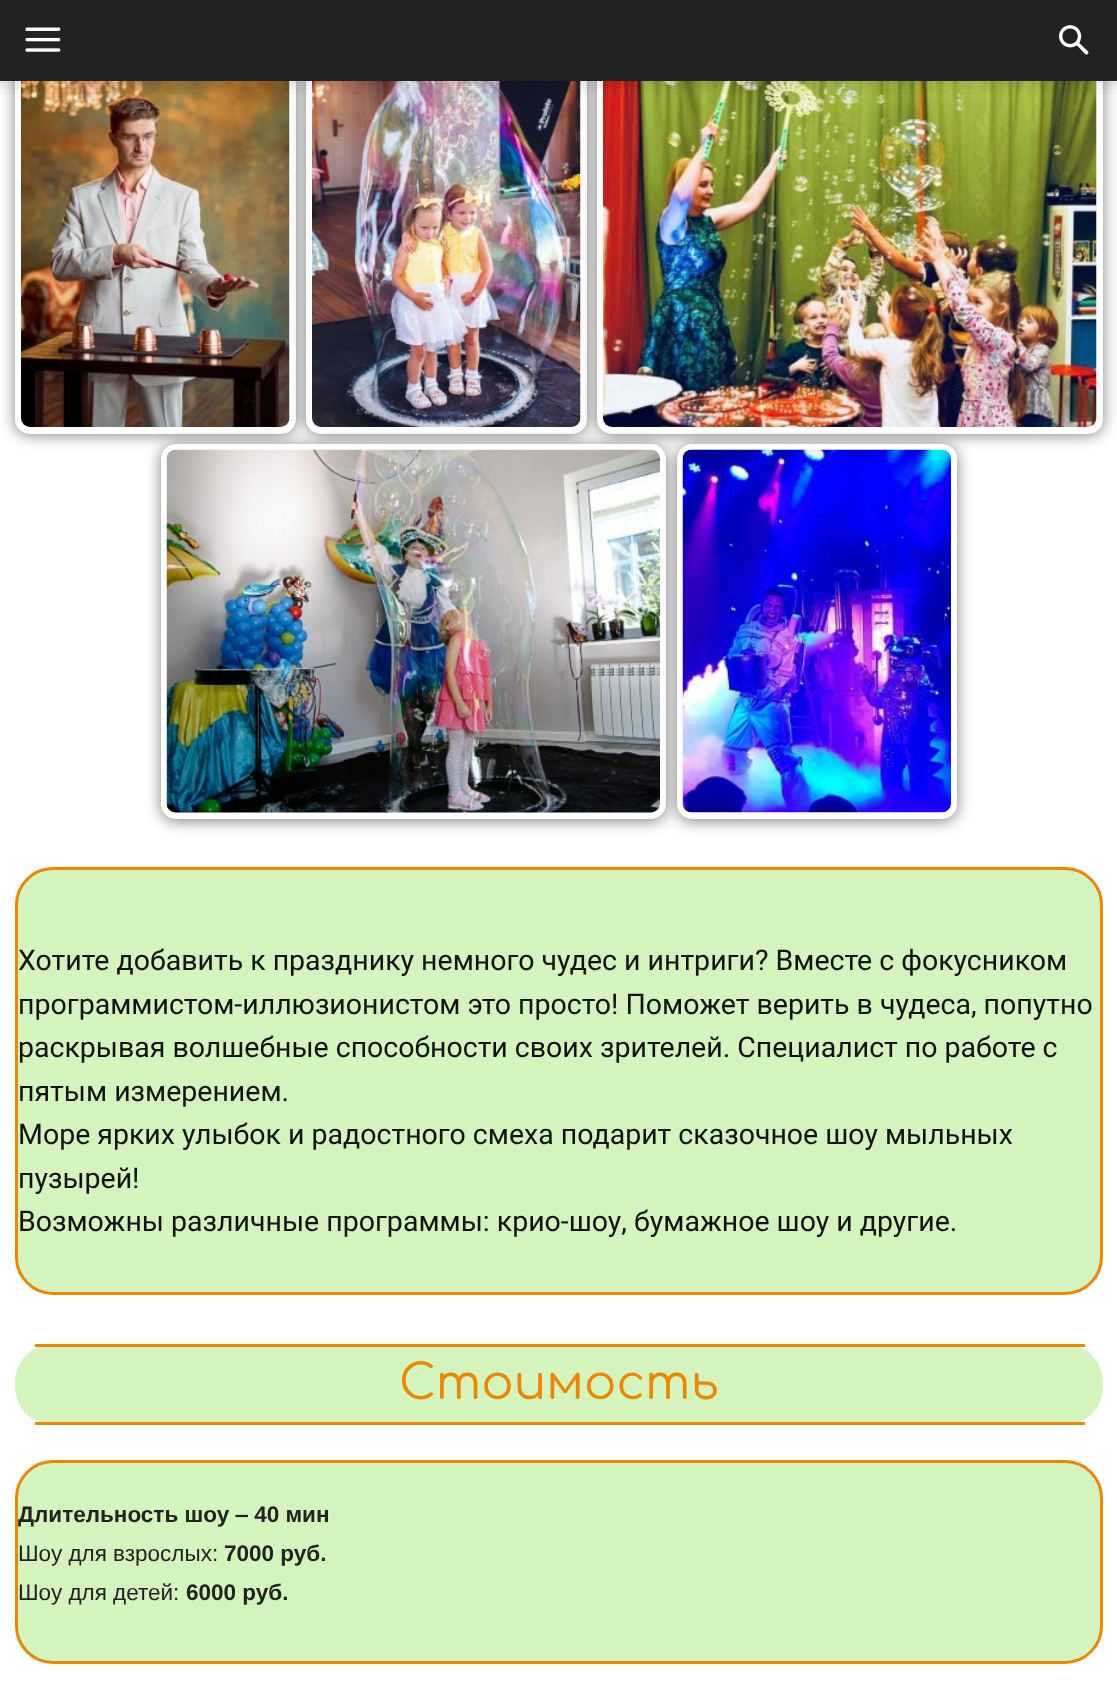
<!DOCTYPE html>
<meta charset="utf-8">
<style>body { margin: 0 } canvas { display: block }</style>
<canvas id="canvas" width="1117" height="1701"></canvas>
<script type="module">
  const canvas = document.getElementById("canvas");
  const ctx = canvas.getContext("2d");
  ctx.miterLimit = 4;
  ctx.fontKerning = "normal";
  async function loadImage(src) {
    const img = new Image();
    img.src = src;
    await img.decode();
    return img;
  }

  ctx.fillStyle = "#ffffff";
  ctx.fillRect(0, 0, 1117, 1701);
  ctx.fillStyle = "rgba(0, 0, 0, 0.5)";
  ctx.filter = "blur(7.5px)";
  ctx.beginPath();
  ctx.roundRect(15, 62, 281, 373, 15);
  ctx.fill();
  ctx.filter = "none";
  ctx.fillStyle = "#ffffff";
  ctx.beginPath();
  ctx.roundRect(18, 63, 275, 368, 12);
  ctx.fill();
  ctx.strokeStyle = "#ffffff";
  ctx.lineWidth = 6;
  ctx.stroke();
  ctx.drawImage(await loadImage("img4.png"), 21, 81, 269, 346);
  ctx.fillStyle = "rgba(0, 0, 0, 0.5)";
  ctx.filter = "blur(7.5px)";
  ctx.beginPath();
  ctx.roundRect(306, 62, 281, 373, 15);
  ctx.fill();
  ctx.filter = "none";
  ctx.fillStyle = "#ffffff";
  ctx.beginPath();
  ctx.roundRect(309, 63, 275, 368, 12);
  ctx.fill();
  ctx.stroke();
  ctx.drawImage(await loadImage("img5.png"), 312, 81, 269, 346);
  ctx.fillStyle = "rgba(0, 0, 0, 0.5)";
  ctx.filter = "blur(7.5px)";
  ctx.beginPath();
  ctx.roundRect(597, 62, 506, 373, 15);
  ctx.fill();
  ctx.filter = "none";
  ctx.fillStyle = "#ffffff";
  ctx.beginPath();
  ctx.roundRect(600, 63, 500, 368, 12);
  ctx.fill();
  ctx.stroke();
  ctx.fillStyle = "#222222";
  ctx.fillRect(0, 0, 1117, 81);
  ctx.drawImage(await loadImage("img1.png"), 25, 27, 36, 25);
  ctx.drawImage(await loadImage("img2.png"), 1059, 25, 30, 30);
  ctx.drawImage(await loadImage("img6.png"), 603, 81, 494, 346);
  ctx.drawImage(await loadImage("img3.png"), 0, 81, 1117, 13);
  ctx.fillStyle = "rgba(0, 0, 0, 0.5)";
  ctx.filter = "blur(7.5px)";
  ctx.beginPath();
  ctx.roundRect(161, 446, 505, 375, 15);
  ctx.fill();
  ctx.filter = "none";
  ctx.fillStyle = "#ffffff";
  ctx.beginPath();
  ctx.roundRect(164, 447, 499, 369, 12);
  ctx.fill();
  ctx.stroke();
  ctx.drawImage(await loadImage("img7.png"), 166, 449, 494, 364);
  ctx.fillStyle = "rgba(0, 0, 0, 0.5)";
  ctx.filter = "blur(7.5px)";
  ctx.beginPath();
  ctx.roundRect(677, 446, 280, 375, 15);
  ctx.fill();
  ctx.filter = "none";
  ctx.fillStyle = "#ffffff";
  ctx.beginPath();
  ctx.roundRect(680, 447, 274, 369, 12);
  ctx.fill();
  ctx.stroke();
  ctx.drawImage(await loadImage("img8.png"), 682, 449, 269, 364);
  ctx.fillStyle = "#d3f4bc";
  ctx.beginPath();
  ctx.roundRect(16.5, 868.5, 1085, 425, 36.5);
  ctx.fill();
  ctx.strokeStyle = "#ed8600";
  ctx.lineWidth = 3;
  ctx.stroke();
  ctx.font = "28.5px Roboto";
  ctx.fillStyle = "#111111";
  ctx.fillText("Хотите добавить к празднику немного чудес и интриги? Вместе с фокусником", 18, 970);
  ctx.fillText("программистом-иллюзионистом это просто! Поможет верить в чудеса, попутно", 18, 1014);
  ctx.fillText("раскрывая волшебные способности своих зрителей. Специалист по работе с", 18, 1057);
  ctx.fillText("пятым измерением.", 18, 1101);
  ctx.fillText("Море ярких улыбок и радостного смеха подарит сказочное шоу мыльных", 18, 1144);
  ctx.fillText("пузырей!", 18, 1188);
  ctx.fillText("Возможны различные программы: крио-шоу, бумажное шоу и другие.", 18, 1231);
  ctx.fillStyle = "#d3f4bc";
  ctx.beginPath();
  ctx.roundRect(15, 1344, 1088, 81, 38);
  ctx.fill();
  ctx.fillStyle = "#ed8600";
  ctx.fillRect(35, 1344, 1050, 3);
  ctx.fillRect(35, 1422, 1050, 3);
  ctx.font = "48px Comfortaa";
  ctx.fillText("Стоимость", 399, 1399);
  ctx.fillStyle = "#d3f4bc";
  ctx.beginPath();
  ctx.roundRect(16.5, 1461.5, 1085, 201, 36.5);
  ctx.fill();
  ctx.stroke();
  ctx.font = "bold 22.5px Liberation Sans";
  ctx.fillStyle = "#222222";
  ctx.fillText("Длительность шоу ‒ 40 мин", 18, 1522);
  ctx.font = "22.5px Liberation Sans";
  ctx.fillText("Шоу для взрослых:", 18, 1561);
  ctx.font = "bold 22.5px Liberation Sans";
  ctx.fillText("7000 руб.", 224, 1561);
  ctx.font = "22.5px Liberation Sans";
  ctx.fillText("Шоу для детей:", 18, 1600);
  ctx.font = "bold 22.5px Liberation Sans";
  ctx.fillText("6000 руб.", 186, 1600);
</script>
